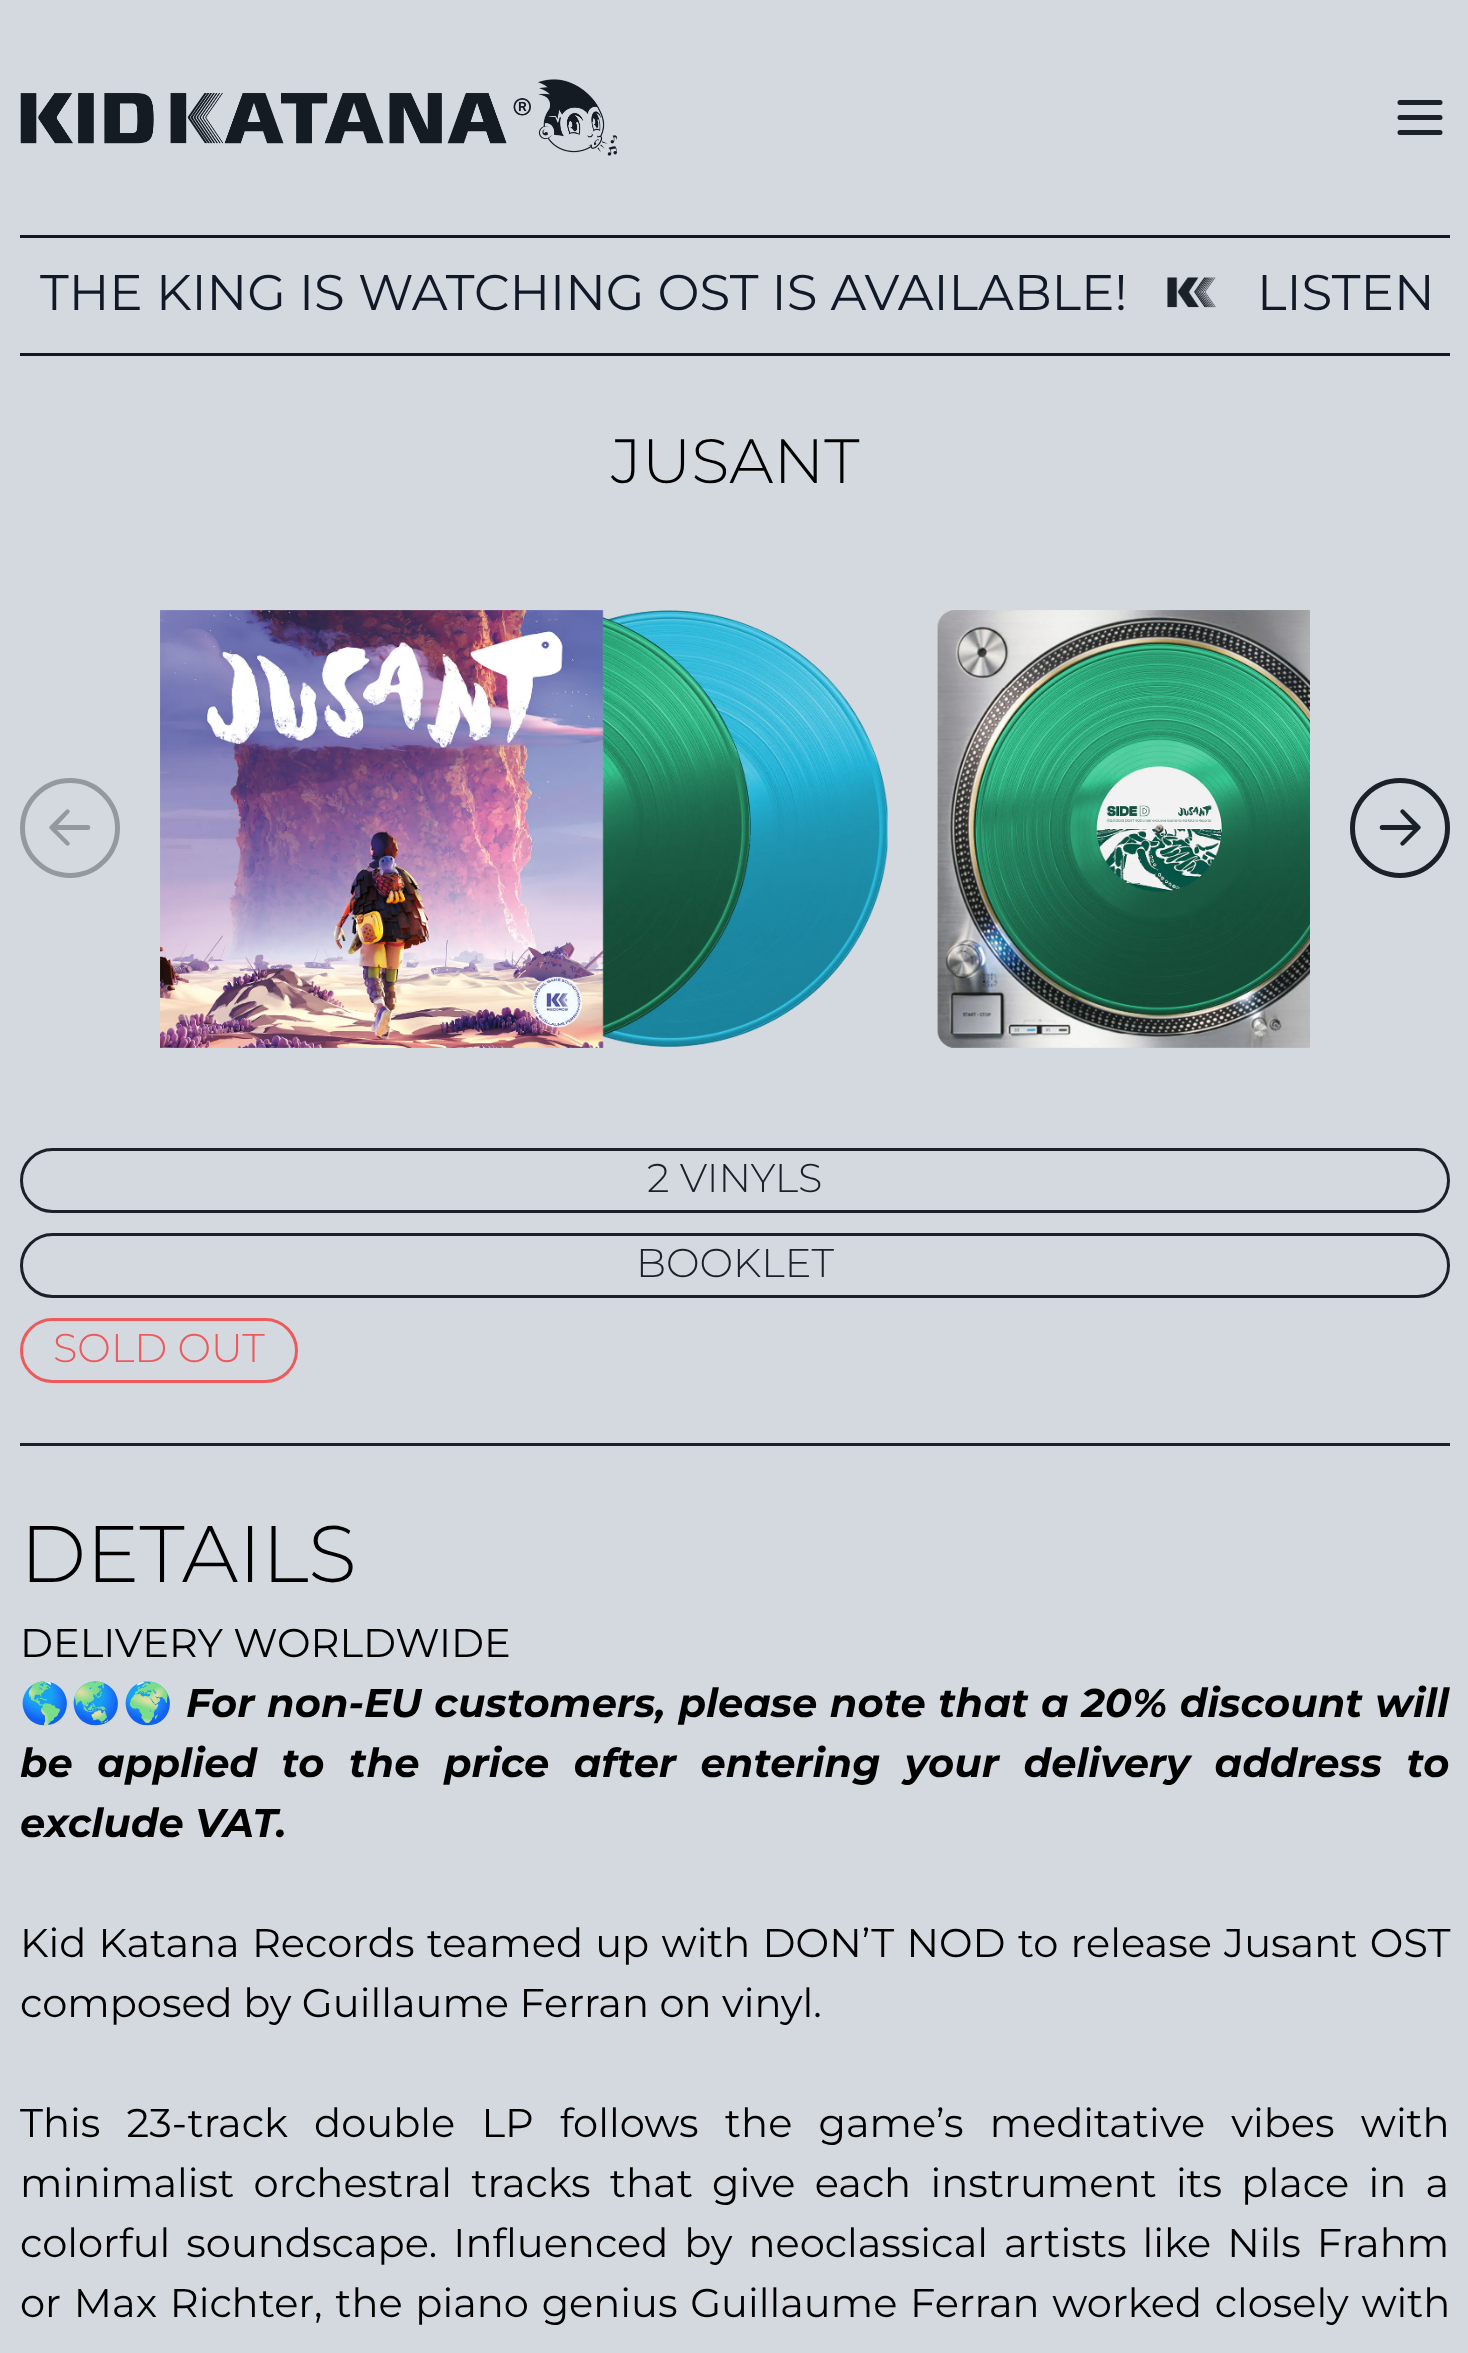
<!DOCTYPE html>
<meta charset="utf-8">
<style>body { margin: 0 } canvas { display: block }</style>
<canvas id="canvas" width="1468" height="2353"></canvas>
<script type="module">
  const canvas = document.getElementById("canvas");
  const ctx = canvas.getContext("2d");
  ctx.miterLimit = 4;
  ctx.fontKerning = "normal";
  async function loadImage(src) {
    const img = new Image();
    img.src = src;
    await img.decode();
    return img;
  }

  ctx.fillStyle = "#d4d9df";
  ctx.fillRect(0, 0, 1468, 2353);
  ctx.drawImage(await loadImage("img1.png"), 20, 79, 597, 77);
  ctx.beginPath();
  ctx.moveTo(1400, 117.5);
  ctx.lineTo(1440, 117.5);
  ctx.moveTo(1400, 102.5);
  ctx.lineTo(1440, 102.5);
  ctx.moveTo(1400, 132.5);
  ctx.lineTo(1440, 132.5);
  ctx.strokeStyle = "#1b2128";
  ctx.lineWidth = 5;
  ctx.lineCap = "round";
  ctx.lineJoin = "round";
  ctx.stroke();
  ctx.fillStyle = "#111827";
  ctx.fillRect(20, 235, 1430, 3);
  ctx.fillRect(20, 353, 1430, 3);
  ctx.font = "50px Montserrat";
  ctx.fillText("THE KING IS WATCHING OST IS AVAILABLE!", 40, 310);
  ctx.drawImage(await loadImage("img2.png"), 1167, 277, 49, 31);
  ctx.fillText("LISTEN", 1257, 310);
  ctx.font = "300 62.5px Montserrat";
  ctx.fillStyle = "#000000";
  ctx.fillText("JUSANT", 611, 483);
  ctx.beginPath();
  ctx.arc(70, 828, 47.5, 0, Math.PI * 2);
  ctx.strokeStyle = "#93999f";
  ctx.stroke();
  ctx.fillStyle = "#93999f";
  ctx.beginPath();
  ctx.moveTo(88, 825);
  ctx.bezierCurveTo(91, 825, 91, 830, 88, 830);
  ctx.closePath();
  ctx.moveTo(50, 829);
  ctx.bezierCurveTo(49, 828, 49, 827, 50, 826);
  ctx.lineTo(66, 810);
  ctx.bezierCurveTo(67, 809, 68, 809, 69, 810);
  ctx.bezierCurveTo(70, 811, 70, 812, 69, 813);
  ctx.lineTo(55, 828);
  ctx.lineTo(69, 842);
  ctx.bezierCurveTo(70, 843, 70, 844, 69, 845);
  ctx.bezierCurveTo(68, 846, 67, 846, 66, 845);
  ctx.closePath();
  ctx.moveTo(88, 830);
  ctx.lineTo(52, 830);
  ctx.lineTo(52, 825);
  ctx.lineTo(88, 825);
  ctx.closePath();
  ctx.fill();
  ctx.drawImage(await loadImage("img3.png"), 160, 610, 728, 438);
  ctx.drawImage(await loadImage("img4.png"), 937, 610, 373, 438);
  ctx.beginPath();
  ctx.arc(1400, 828, 47.5, 0, Math.PI * 2);
  ctx.strokeStyle = "#1b2128";
  ctx.stroke();
  ctx.fillStyle = "#1b2128";
  ctx.beginPath();
  ctx.moveTo(1382, 825);
  ctx.bezierCurveTo(1379, 825, 1379, 830, 1382, 830);
  ctx.closePath();
  ctx.moveTo(1420, 829);
  ctx.bezierCurveTo(1421, 828, 1421, 827, 1420, 826);
  ctx.lineTo(1404, 810);
  ctx.bezierCurveTo(1403, 809, 1402, 809, 1401, 810);
  ctx.bezierCurveTo(1400, 811, 1400, 812, 1401, 813);
  ctx.lineTo(1415, 828);
  ctx.lineTo(1401, 842);
  ctx.bezierCurveTo(1400, 843, 1400, 844, 1401, 845);
  ctx.bezierCurveTo(1402, 846, 1403, 846, 1404, 845);
  ctx.closePath();
  ctx.moveTo(1382, 830);
  ctx.lineTo(1418, 830);
  ctx.lineTo(1418, 825);
  ctx.lineTo(1382, 825);
  ctx.closePath();
  ctx.fill();
  ctx.beginPath();
  ctx.roundRect(21.5, 1149.5, 1427, 62, 31);
  ctx.lineWidth = 3;
  ctx.lineJoin = "miter";
  ctx.stroke();
  ctx.font = "300 40px Montserrat";
  ctx.fillText("2 VINYLS", 647, 1192);
  ctx.beginPath();
  ctx.roundRect(21.5, 1234.5, 1427, 62, 31);
  ctx.stroke();
  ctx.fillText("BOOKLET", 636, 1277);
  ctx.beginPath();
  ctx.roundRect(21.5, 1319.5, 275, 62, 31);
  ctx.strokeStyle = "#ec5a5c";
  ctx.stroke();
  ctx.fillStyle = "#ec5a5c";
  ctx.fillText("SOLD OUT", 53, 1362);
  ctx.fillStyle = "#1b2128";
  ctx.fillRect(20, 1443, 1430, 3);
  ctx.font = "300 80px Montserrat";
  ctx.fillStyle = "#000000";
  ctx.fillText("DETAILS", 20, 1582);
  ctx.font = "40px Montserrat";
  ctx.fillText("DELIVERY WORLDWIDE", 20, 1657);
  ctx.letterSpacing = "2px";
  ctx.font = "bold 40px Noto Color Emoji";
  ctx.fillText("🌎🌏🌍", 20, 1717);
  ctx.letterSpacing = "0px";
  ctx.wordSpacing = "1.25px";
  ctx.font = "italic bold 40px Montserrat";
  ctx.fillText("For non-EU customers, please note that a 20% discount will", 186, 1717);
  ctx.wordSpacing = "13.25px";
  ctx.fillText("be applied to the price after entering your delivery address to", 20, 1777);
  ctx.wordSpacing = "0px";
  ctx.fillText("exclude VAT.", 20, 1837);
  ctx.wordSpacing = "1.75px";
  ctx.font = "40px Montserrat";
  ctx.fillText("Kid Katana Records teamed up with DON’T NOD to release Jusant OST", 20, 1957);
  ctx.wordSpacing = "0px";
  ctx.fillText("composed by Guillaume Ferran on vinyl.", 20, 2017);
  ctx.wordSpacing = "15.75px";
  ctx.fillText("This 23-track double LP follows the game’s meditative vibes with", 20, 2137);
  ctx.wordSpacing = "8.75px";
  ctx.fillText("minimalist orchestral tracks that give each instrument its place in a", 20, 2197);
  ctx.wordSpacing = "5.5px";
  ctx.fillText("colorful soundscape. Influenced by neoclassical artists like Nils Frahm", 20, 2257);
  ctx.wordSpacing = "2.25px";
  ctx.fillText("or Max Richter, the piano genius Guillaume Ferran worked closely with", 20, 2317);
</script>
